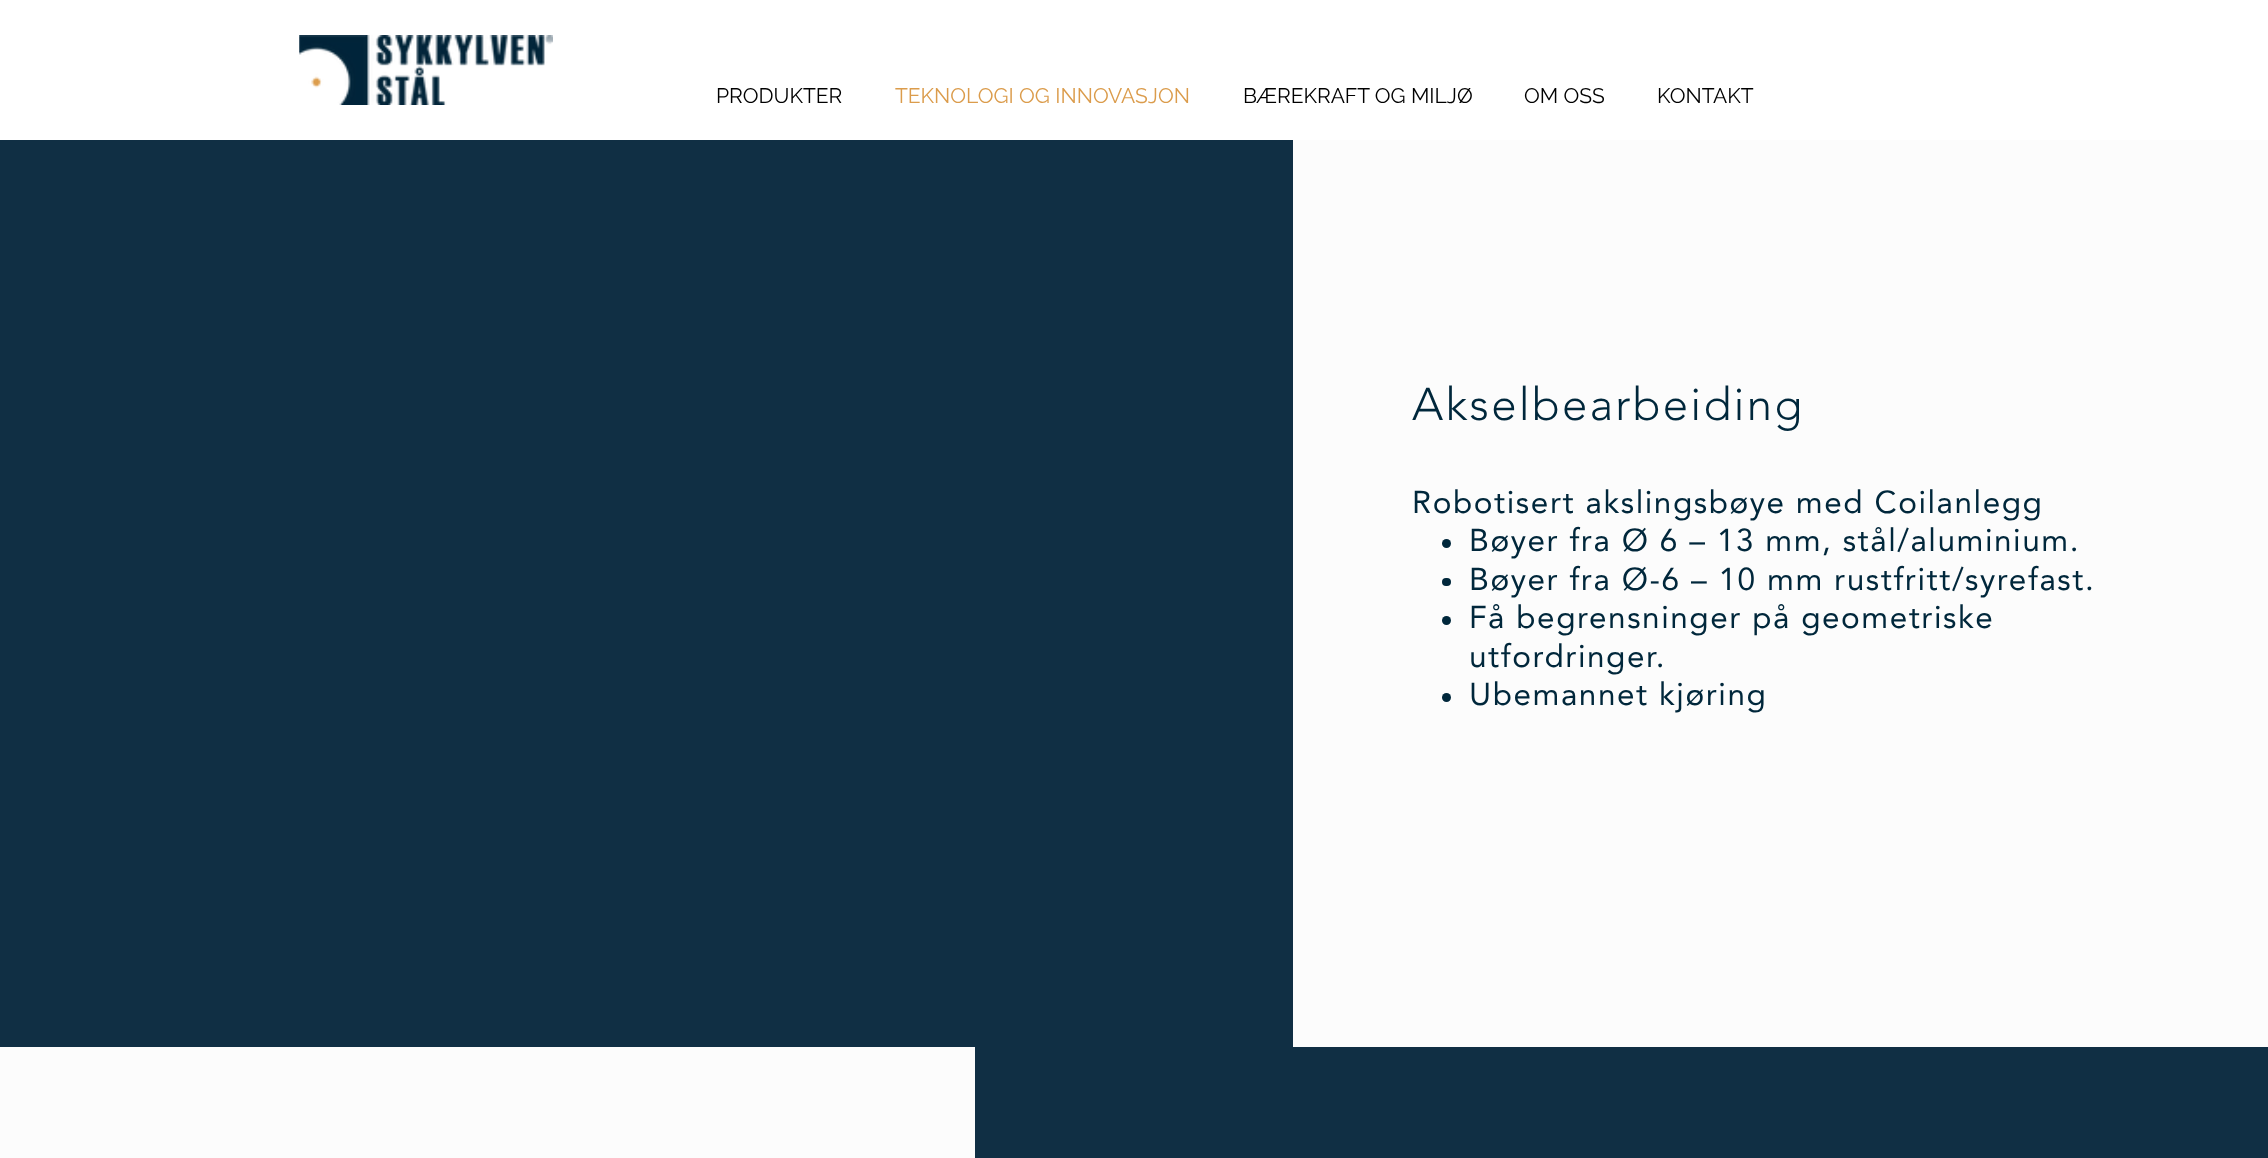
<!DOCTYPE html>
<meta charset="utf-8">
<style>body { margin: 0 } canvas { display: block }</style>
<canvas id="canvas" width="2268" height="1158"></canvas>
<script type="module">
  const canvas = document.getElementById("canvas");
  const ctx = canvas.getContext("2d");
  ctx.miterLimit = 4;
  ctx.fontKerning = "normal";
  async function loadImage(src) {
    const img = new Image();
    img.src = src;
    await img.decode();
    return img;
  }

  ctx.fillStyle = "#ffffff";
  ctx.fillRect(0, 0, 2268, 1158);
  ctx.drawImage(await loadImage("img1.png"), 299, 35, 254, 70);
  ctx.font = "21px Raleway";
  ctx.fillStyle = "#000000";
  ctx.fillText("PRODUKTER", 716, 103);
  ctx.fillStyle = "#db9c4c";
  ctx.fillText("TEKNOLOGI OG INNOVASJON", 895, 103);
  ctx.fillStyle = "#000000";
  ctx.fillText("BÆREKRAFT OG MILJØ", 1243, 103);
  ctx.fillText("OM OSS", 1524, 103);
  ctx.fillText("KONTAKT", 1657, 103);
  ctx.fillStyle = "#102f44";
  ctx.fillRect(0, 140, 1293, 907);
  ctx.fillStyle = "#fcfcfc";
  ctx.fillRect(1293, 140, 975, 907);
  ctx.letterSpacing = "2.25px";
  ctx.font = "300 45.5px Avenir";
  ctx.fillStyle = "#00273b";
  ctx.fillText("Akselbearbeiding", 1412, 420);
  ctx.letterSpacing = "1.55px";
  ctx.font = "31.5px Avenir";
  ctx.fillText("Robotisert akslingsbøye med Coilanlegg", 1412, 513);
  ctx.beginPath();
  ctx.arc(1446.5, 543.5, 4.5, 0, Math.PI * 2);
  ctx.fill();
  ctx.fillText("Bøyer fra Ø 6 – 13 mm, stål/aluminium.", 1469, 551);
  ctx.beginPath();
  ctx.roundRect(1442, 578, 9, 8, 4);
  ctx.fill();
  ctx.fillText("Bøyer fra Ø-6 – 10 mm rustfritt/syrefast.", 1469, 590);
  ctx.beginPath();
  ctx.arc(1446.5, 620.5, 4.5, 0, Math.PI * 2);
  ctx.fill();
  ctx.fillText("Få begrensninger på geometriske", 1469, 628);
  ctx.fillText("utfordringer.", 1469, 667);
  ctx.beginPath();
  ctx.arc(1446.5, 697.5, 4.5, 0, Math.PI * 2);
  ctx.fill();
  ctx.fillText("Ubemannet kjøring", 1469, 705);
  ctx.fillStyle = "#fcfcfc";
  ctx.fillRect(0, 1047, 975, 111);
  ctx.fillStyle = "#102f44";
  ctx.fillRect(975, 1047, 1293, 111);
</script>
